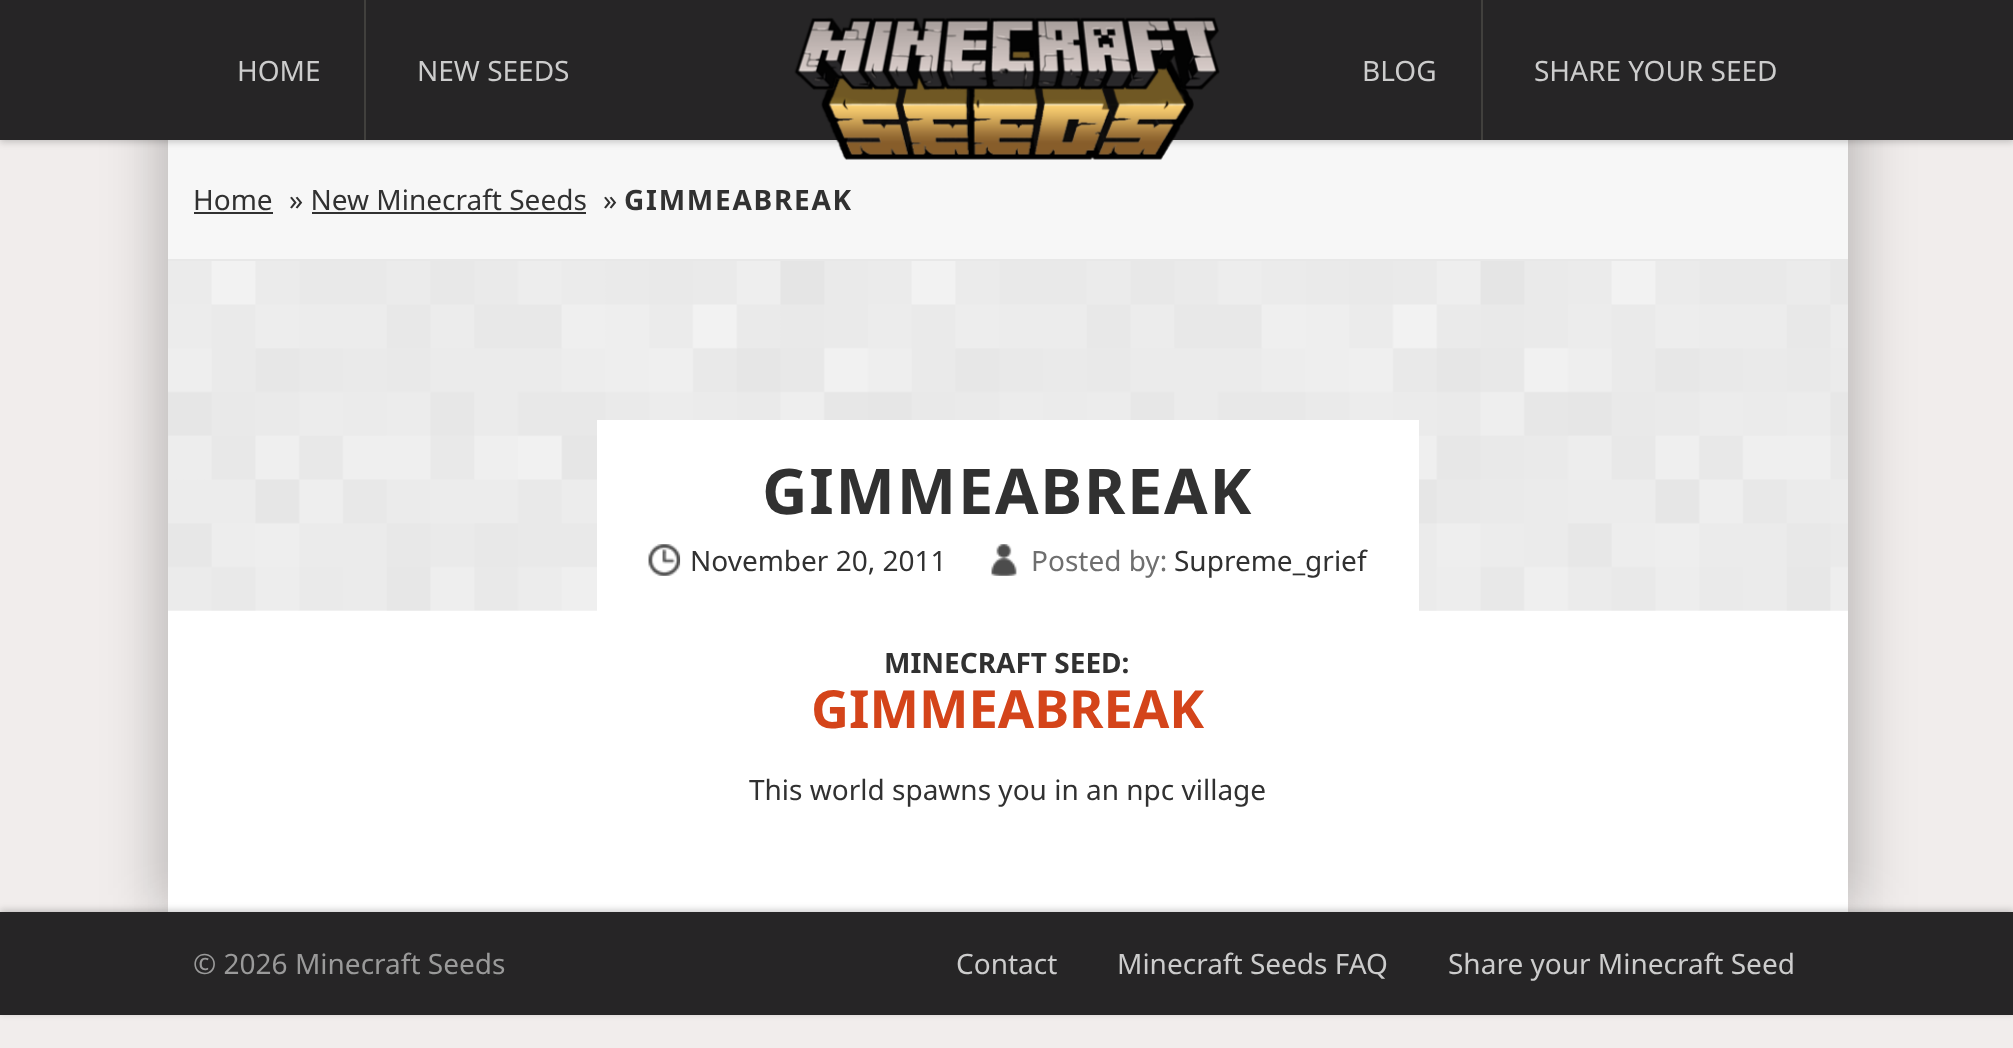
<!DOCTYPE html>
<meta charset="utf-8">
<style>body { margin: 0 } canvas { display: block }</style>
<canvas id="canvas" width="2013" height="1048"></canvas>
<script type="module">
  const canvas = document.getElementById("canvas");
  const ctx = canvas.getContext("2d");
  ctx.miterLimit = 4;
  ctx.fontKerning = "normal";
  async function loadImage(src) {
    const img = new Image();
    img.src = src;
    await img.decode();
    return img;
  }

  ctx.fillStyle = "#f1edec";
  ctx.fillRect(0, 0, 2013, 1048);
  ctx.fillStyle = "rgba(0, 0, 0, 0.15)";
  ctx.filter = "blur(26px)";
  ctx.beginPath();
  ctx.rect(151, 56, 1680, 856);
  ctx.fill();
  ctx.filter = "none";
  ctx.filter = "blur(26px)";
  ctx.beginPath();
  ctx.rect(186, 56, 1680, 856);
  ctx.fill();
  ctx.filter = "none";
  ctx.fillStyle = "#f7f7f7";
  ctx.fillRect(168, 140, 1680, 119);
  ctx.fillStyle = "rgba(0, 0, 0, 0.2)";
  ctx.filter = "blur(3.5px)";
  ctx.beginPath();
  ctx.rect(0, 2, 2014, 140);
  ctx.fill();
  ctx.filter = "none";
  ctx.fillStyle = "#262526";
  ctx.fillRect(0, 0, 2013, 140);
  ctx.drawImage(await loadImage("img1.png"), 794, 17, 426, 143);
  ctx.fillStyle = "#41403d";
  ctx.fillRect(364, 0, 2, 140);
  ctx.font = "28px Noto Sans";
  ctx.fillStyle = "#cccccc";
  ctx.fillText("HOME", 237, 81);
  ctx.fillText("NEW SEEDS", 417, 81);
  ctx.fillStyle = "#41403d";
  ctx.fillRect(1481, 0, 2, 140);
  ctx.fillStyle = "#cccccc";
  ctx.fillText("BLOG", 1362, 81);
  ctx.fillText("SHARE YOUR SEED", 1534, 81);
  ctx.fillStyle = "#ffffff";
  ctx.fillRect(168, 610, 1680, 302);
  ctx.fillStyle = "#e8e8e8";
  ctx.fillRect(168, 259, 1680, 2);
  ctx.fillStyle = "#313131";
  ctx.fillText("Home", 193, 210);
  ctx.fillRect(194, 212, 79, 2);
  ctx.fillText("» New Minecraft Seeds", 289, 210);
  ctx.fillRect(312, 212, 274, 2);
  ctx.fillText("»", 603, 210);
  ctx.letterSpacing = "1.75px";
  ctx.font = "bold 28px Noto Sans";
  ctx.fillText("GIMMEABREAK", 624, 210);
  ctx.drawImage(await loadImage("img2.png"), 168, 261, 1680, 350);
  ctx.fillStyle = "#ffffff";
  ctx.fillRect(597, 420, 822, 191);
  ctx.font = "bold 63px Noto Sans";
  ctx.fillStyle = "#313131";
  ctx.fillText("GIMMEABREAK", 762, 514);
  ctx.drawImage(await loadImage("img3.png"), 648, 544, 33, 32);
  ctx.letterSpacing = "0px";
  ctx.font = "28px Noto Sans";
  ctx.fillText("November 20, 2011", 690, 571);
  ctx.drawImage(await loadImage("img4.png"), 991, 544, 26, 32);
  ctx.fillStyle = "#6f6f6f";
  ctx.fillText("Posted by:", 1031, 571);
  ctx.fillStyle = "#313131";
  ctx.fillText("Supreme_grief", 1174, 571);
  ctx.font = "bold 28px Noto Sans";
  ctx.fillText("MINECRAFT SEED:", 884, 673);
  ctx.font = "bold 52.5px Noto Sans";
  ctx.fillStyle = "#d4441a";
  ctx.fillText("GIMMEABREAK", 811, 728);
  ctx.font = "28px Noto Sans";
  ctx.fillStyle = "#313131";
  ctx.fillText("This world spawns you in an npc village", 749, 800);
  ctx.fillStyle = "rgba(0, 0, 0, 0.2)";
  ctx.filter = "blur(3.5px)";
  ctx.beginPath();
  ctx.rect(0, 910, 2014, 103);
  ctx.fill();
  ctx.filter = "none";
  ctx.fillStyle = "#262526";
  ctx.fillRect(0, 912, 2013, 103);
  ctx.fillStyle = "#9a9a9a";
  ctx.fillText("© 2026 Minecraft Seeds", 193, 974);
  ctx.fillStyle = "#cccccc";
  ctx.fillText("Contact", 956, 974);
  ctx.fillText("Minecraft Seeds FAQ", 1117, 974);
  ctx.fillText("Share your Minecraft Seed", 1448, 974);
</script>
